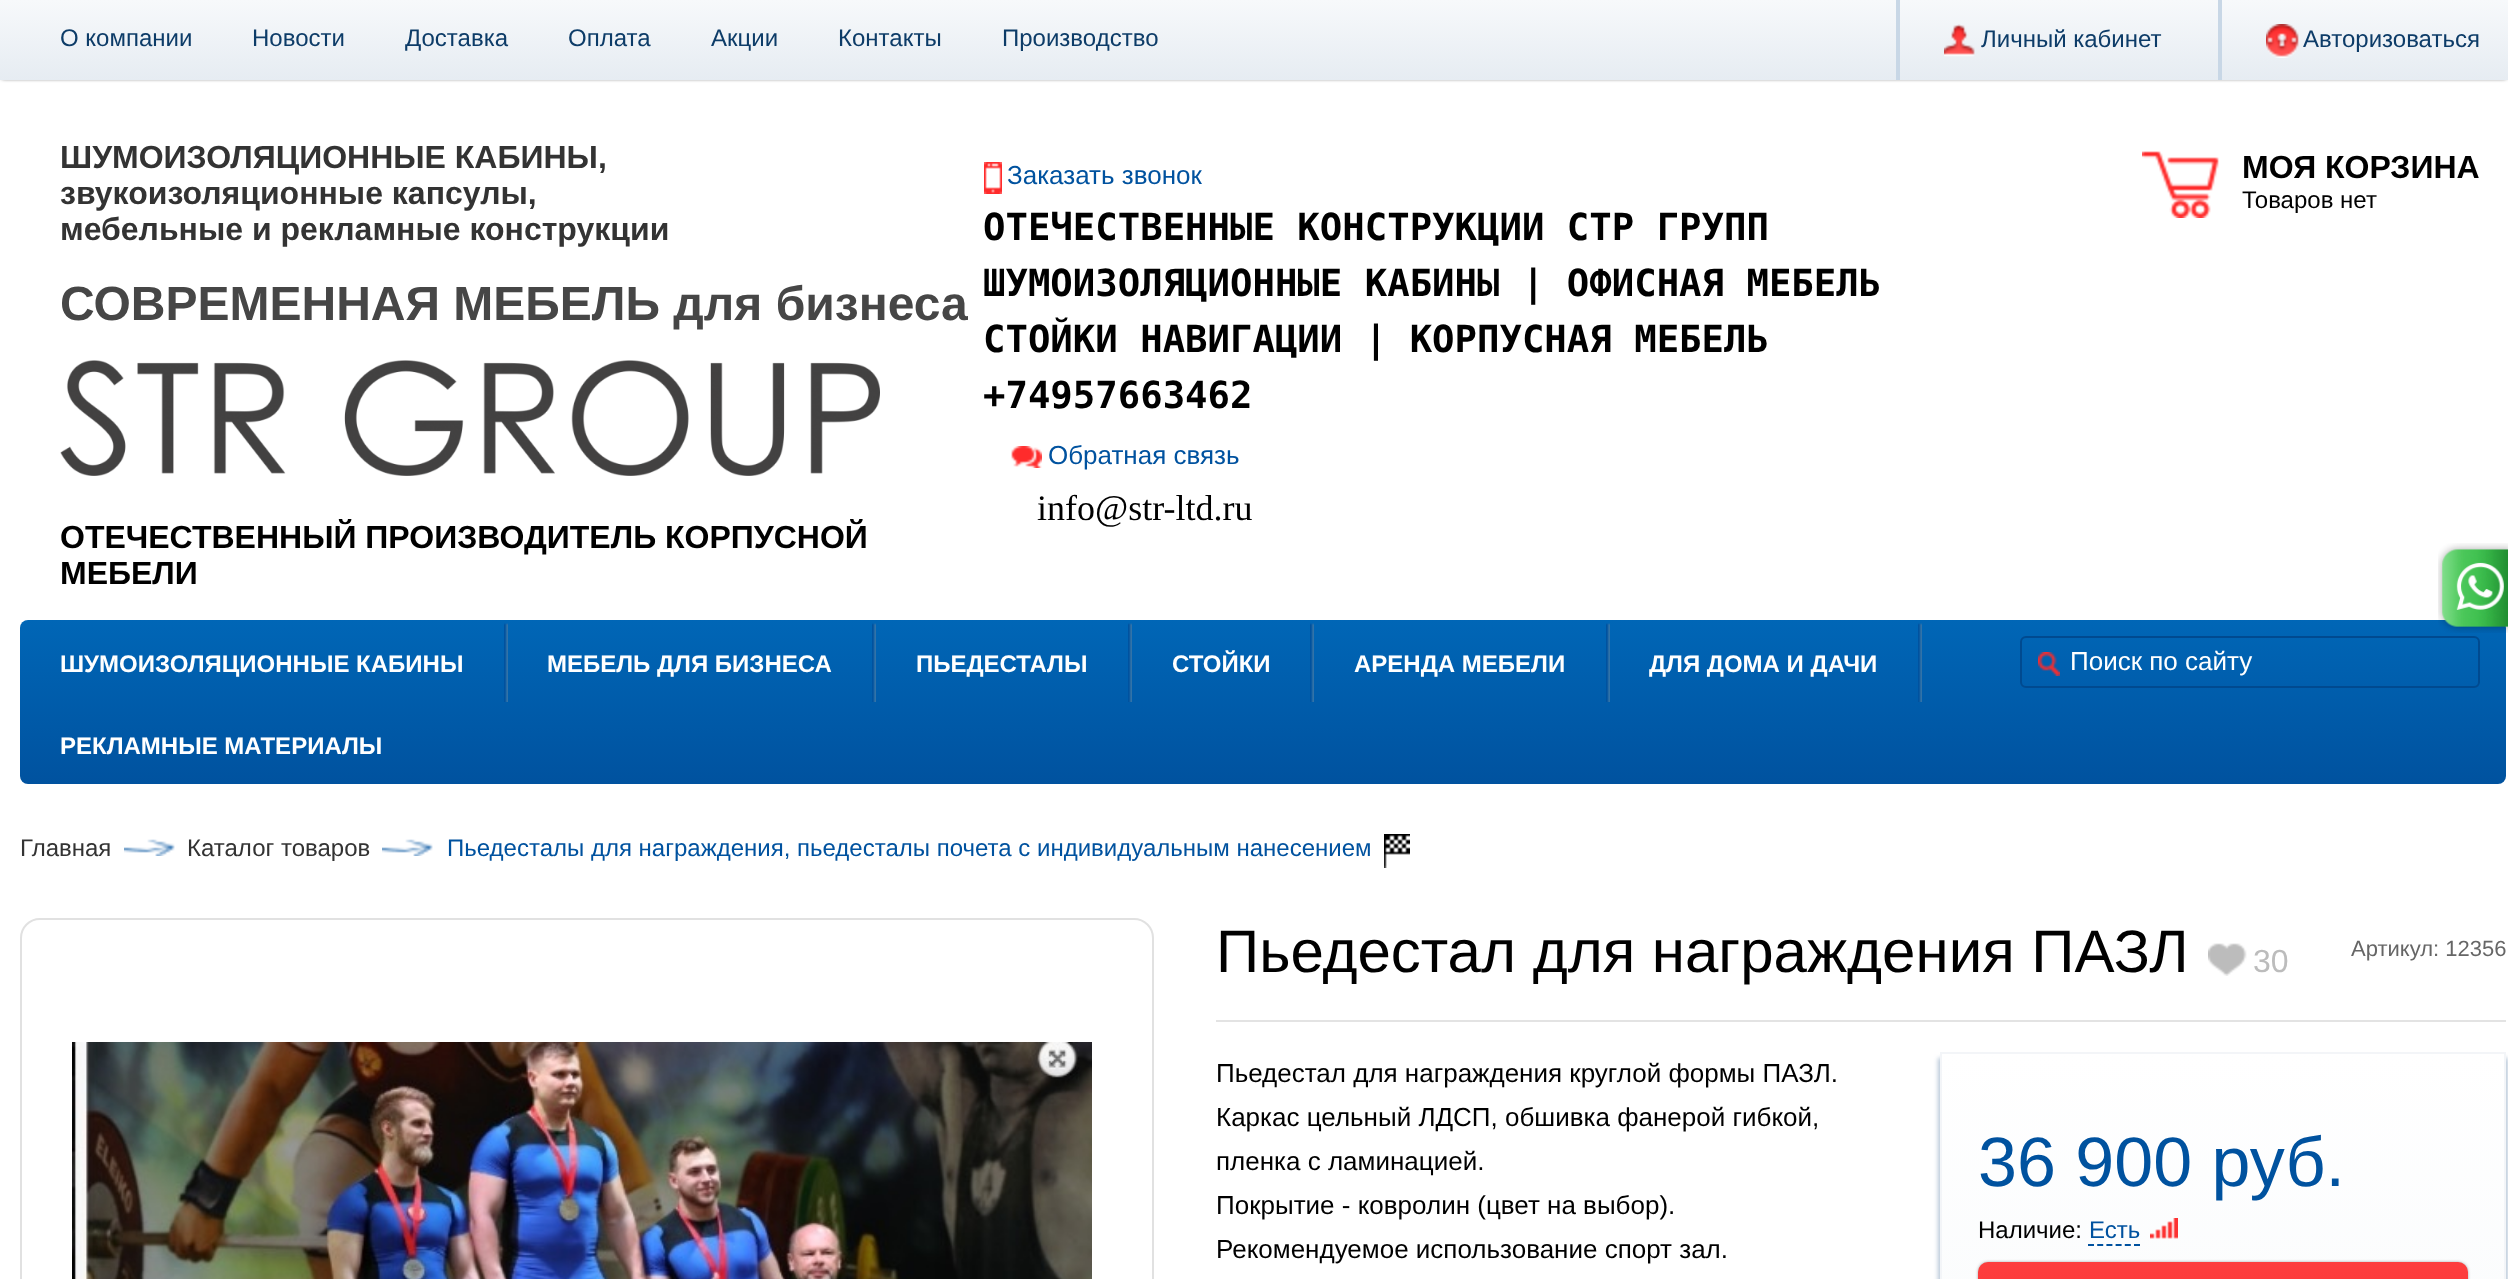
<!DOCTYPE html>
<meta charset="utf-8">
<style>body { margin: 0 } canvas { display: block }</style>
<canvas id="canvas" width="2508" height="1279"></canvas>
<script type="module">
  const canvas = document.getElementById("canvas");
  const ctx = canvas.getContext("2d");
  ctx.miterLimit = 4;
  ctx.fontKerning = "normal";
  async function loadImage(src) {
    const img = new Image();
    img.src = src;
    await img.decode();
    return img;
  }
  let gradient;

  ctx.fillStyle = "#ffffff";
  ctx.fillRect(0, 0, 2508, 1279);
  ctx.fillStyle = "#000000";
  ctx.filter = "blur(2px)";
  ctx.beginPath();
  ctx.rect(2, 2, 2504, 76);
  ctx.fill();
  ctx.filter = "none";
  gradient = ctx.createLinearGradient(1254, 0, 1254, 80);
  gradient.addColorStop(0, "#f7f9fb");
  gradient.addColorStop(1, "#e6ecf2");
  ctx.fillStyle = gradient;
  ctx.fillRect(0, 0, 2508, 80);
  ctx.font = "24px Liberation Sans";
  ctx.fillStyle = "#0d3c68";
  ctx.fillText("О компании", 60, 46);
  ctx.fillText("Новости", 252, 46);
  ctx.fillText("Доставка", 405, 46);
  ctx.fillText("Оплата", 568, 46);
  ctx.fillText("Акции", 711, 46);
  ctx.fillText("Контакты", 838, 46);
  ctx.fillText("Производство", 1002, 46);
  ctx.fillStyle = "#c8d7e6";
  ctx.fillRect(1896, 0, 4, 80);
  ctx.drawImage(await loadImage("img1.png"), 1944, 24, 31, 33);
  ctx.fillStyle = "#0d3c68";
  ctx.fillText("Личный кабинет", 1981, 47);
  ctx.fillStyle = "#c8d7e6";
  ctx.fillRect(2218, 0, 4, 80);
  ctx.drawImage(await loadImage("img2.png"), 2266, 24, 33, 34);
  ctx.fillStyle = "#0d3c68";
  ctx.fillText("Авторизоваться", 2303, 47);
  ctx.font = "bold 32px Liberation Sans";
  ctx.fillStyle = "#333333";
  ctx.fillText("ШУМОИЗОЛЯЦИОННЫЕ КАБИНЫ,", 60, 168);
  ctx.fillText("звукоизоляционные капсулы,", 60, 204);
  ctx.fillText("мебельные и рекламные конструкции", 60, 240);
  ctx.font = "bold 48px Liberation Sans";
  ctx.fillStyle = "#464646";
  ctx.fillText("СОВРЕМЕННАЯ МЕБЕЛЬ для бизнеса", 60, 320);
  ctx.drawImage(await loadImage("img3.png"), 60, 360, 820, 116);
  ctx.font = "bold 32px Liberation Sans";
  ctx.fillStyle = "#000000";
  ctx.fillText("ОТЕЧЕСТВЕННЫЙ ПРОИЗВОДИТЕЛЬ КОРПУСНОЙ", 60, 548);
  ctx.fillText("МЕБЕЛИ", 60, 584);
  ctx.drawImage(await loadImage("img4.png"), 984, 162, 18, 32);
  ctx.font = "26px Liberation Sans";
  ctx.fillStyle = "#00529f";
  ctx.fillText("Заказать звонок", 1007, 184);
  ctx.font = "bold 37.3px DejaVu Sans Mono";
  ctx.fillStyle = "#000000";
  ctx.fillText("ОТЕЧЕСТВЕННЫЕ КОНСТРУКЦИИ СТР ГРУПП", 983, 240);
  ctx.fillText("ШУМОИЗОЛЯЦИОННЫЕ КАБИНЫ | ОФИСНАЯ МЕБЕЛЬ", 983, 296);
  ctx.fillText("СТОЙКИ НАВИГАЦИИ | КОРПУСНАЯ МЕБЕЛЬ", 983, 352);
  ctx.fillText("+74957663462", 983, 408);
  ctx.drawImage(await loadImage("img5.png"), 1011, 446, 31, 22);
  ctx.font = "26px Liberation Sans";
  ctx.fillStyle = "#00529f";
  ctx.fillText("Обратная связь", 1048, 464);
  ctx.font = "36px Liberation Serif";
  ctx.fillStyle = "#000000";
  ctx.fillText("info@str-ltd.ru", 1037, 520);
  ctx.drawImage(await loadImage("img6.png"), 2142, 151, 77, 67);
  ctx.font = "bold 32px Liberation Sans";
  ctx.fillText("МОЯ КОРЗИНА", 2242, 178);
  ctx.font = "24px Liberation Sans";
  ctx.fillText("Товаров нет", 2242, 208);
  gradient = ctx.createLinearGradient(1263, 620, 1263, 784);
  gradient.addColorStop(0, "#0066b6");
  gradient.addColorStop(1, "#00529f");
  ctx.fillStyle = gradient;
  ctx.beginPath();
  ctx.roundRect(20, 620, 2486, 164, 8);
  ctx.fill();
  ctx.font = "bold 24px Liberation Sans";
  ctx.fillStyle = "#ffffff";
  ctx.fillText("ШУМОИЗОЛЯЦИОННЫЕ КАБИНЫ", 60, 672);
  ctx.drawImage(await loadImage("img7.png"), 504, 623, 4, 79);
  ctx.fillText("МЕБЕЛЬ ДЛЯ БИЗНЕСА", 547, 672);
  ctx.drawImage(await loadImage("img7.png"), 872, 623, 4, 79);
  ctx.fillText("ПЬЕДЕСТАЛЫ", 916, 672);
  ctx.drawImage(await loadImage("img7.png"), 1128, 623, 4, 79);
  ctx.fillText("СТОЙКИ", 1172, 672);
  ctx.drawImage(await loadImage("img7.png"), 1310, 623, 4, 79);
  ctx.fillText("АРЕНДА МЕБЕЛИ", 1354, 672);
  ctx.drawImage(await loadImage("img7.png"), 1606, 623, 4, 79);
  ctx.fillText("ДЛЯ ДОМА И ДАЧИ", 1649, 672);
  ctx.drawImage(await loadImage("img7.png"), 1918, 623, 4, 79);
  ctx.fillText("РЕКЛАМНЫЕ МАТЕРИАЛЫ", 60, 754);
  ctx.beginPath();
  ctx.roundRect(2021, 637, 458, 50, 5);
  ctx.strokeStyle = "#004a90";
  ctx.lineWidth = 2;
  ctx.stroke();
  ctx.drawImage(await loadImage("img8.png"), 2038, 652, 22, 24);
  ctx.font = "26px Liberation Sans";
  ctx.fillText("Поиск по сайту", 2070, 670);
  ctx.font = "24px Liberation Sans";
  ctx.fillStyle = "#333333";
  ctx.fillText("Главная", 20, 856);
  ctx.drawImage(await loadImage("img9.png"), 124, 839, 51, 17);
  ctx.fillText("Каталог товаров", 187, 856);
  ctx.drawImage(await loadImage("img9.png"), 382, 839, 51, 17);
  ctx.fillStyle = "#00529f";
  ctx.fillText("Пьедесталы для награждения, пьедесталы почета с индивидуальным нанесением", 447, 856);
  ctx.drawImage(await loadImage("img10.png"), 1384, 834, 26, 34);
  ctx.beginPath();
  ctx.roundRect(21, 919, 1132, 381, 19);
  ctx.strokeStyle = "#e1e1e1";
  ctx.stroke();
  ctx.drawImage(await loadImage("img11.png"), 72, 1042, 1020, 237);
  ctx.fillStyle = "#e3e3e3";
  ctx.fillRect(1216, 1020, 1290, 2);
  ctx.font = "60px Liberation Sans";
  ctx.fillStyle = "#000000";
  ctx.fillText("Пьедестал для награждения ПАЗЛ", 1216, 972);
  ctx.drawImage(await loadImage("img12.png"), 2208, 943, 39, 33);
  ctx.font = "32px Liberation Sans";
  ctx.fillStyle = "#bcbcbc";
  ctx.fillText("30", 2253, 972);
  ctx.font = "22px Liberation Sans";
  ctx.fillStyle = "#666666";
  ctx.fillText("Артикул: 12356", 2351, 956);
  ctx.font = "26px Liberation Sans";
  ctx.fillStyle = "#000000";
  ctx.fillText("Пьедестал для награждения круглой формы ПАЗЛ.", 1216, 1082);
  ctx.fillText("Каркас цельный ЛДСП, обшивка фанерой гибкой,", 1216, 1126);
  ctx.fillText("пленка с ламинацией.", 1216, 1170);
  ctx.fillText("Покрытие - ковролин (цвет на выбор).", 1216, 1214);
  ctx.fillText("Рекомендуемое использование спорт зал.", 1216, 1258);
  ctx.fillStyle = "#b8c8d8";
  ctx.filter = "blur(2px)";
  ctx.beginPath();
  ctx.rect(1938, 1058, 562, 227);
  ctx.fill();
  ctx.filter = "none";
  ctx.filter = "blur(2px)";
  ctx.beginPath();
  ctx.rect(1946, 1058, 562, 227);
  ctx.fill();
  ctx.filter = "none";
  gradient = ctx.createLinearGradient(2223, 1054, 2223, 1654);
  gradient.addColorStop(0, "#ffffff");
  gradient.addColorStop(1, "#f5f8fa");
  ctx.fillStyle = gradient;
  ctx.fillRect(1942, 1054, 562, 225);
  ctx.strokeStyle = "#f3f5f8";
  ctx.strokeRect(1941, 1053, 564, 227);
  ctx.font = "70px Liberation Sans";
  ctx.fillStyle = "#00529f";
  ctx.fillText("36 900 руб.", 1978, 1186);
  ctx.font = "24px Liberation Sans";
  ctx.fillStyle = "#000000";
  ctx.fillText("Наличие:", 1978, 1238);
  ctx.fillStyle = "#00529f";
  ctx.fillText("Есть", 2089, 1238);
  ctx.beginPath();
  ctx.moveTo(2088, 1245);
  ctx.lineTo(2140, 1245);
  ctx.strokeStyle = "#00529f";
  ctx.setLineDash([6, 3.2]);
  ctx.stroke();
  ctx.drawImage(await loadImage("img13.png"), 2150, 1218, 28, 21);
  ctx.fillStyle = "#000000";
  ctx.filter = "blur(2px)";
  ctx.beginPath();
  ctx.roundRect(1980, 1264, 486, 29, 8);
  ctx.fill();
  ctx.filter = "none";
  gradient = ctx.createLinearGradient(2223, 1262, 2223, 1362);
  gradient.addColorStop(0, "#fd3e3e");
  gradient.addColorStop(1, "#fd3232");
  ctx.fillStyle = gradient;
  ctx.beginPath();
  ctx.roundRect(1978, 1262, 490, 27, 10);
  ctx.fill();
  ctx.drawImage(await loadImage("img14.png"), 2438, 543, 70, 90);
</script>
